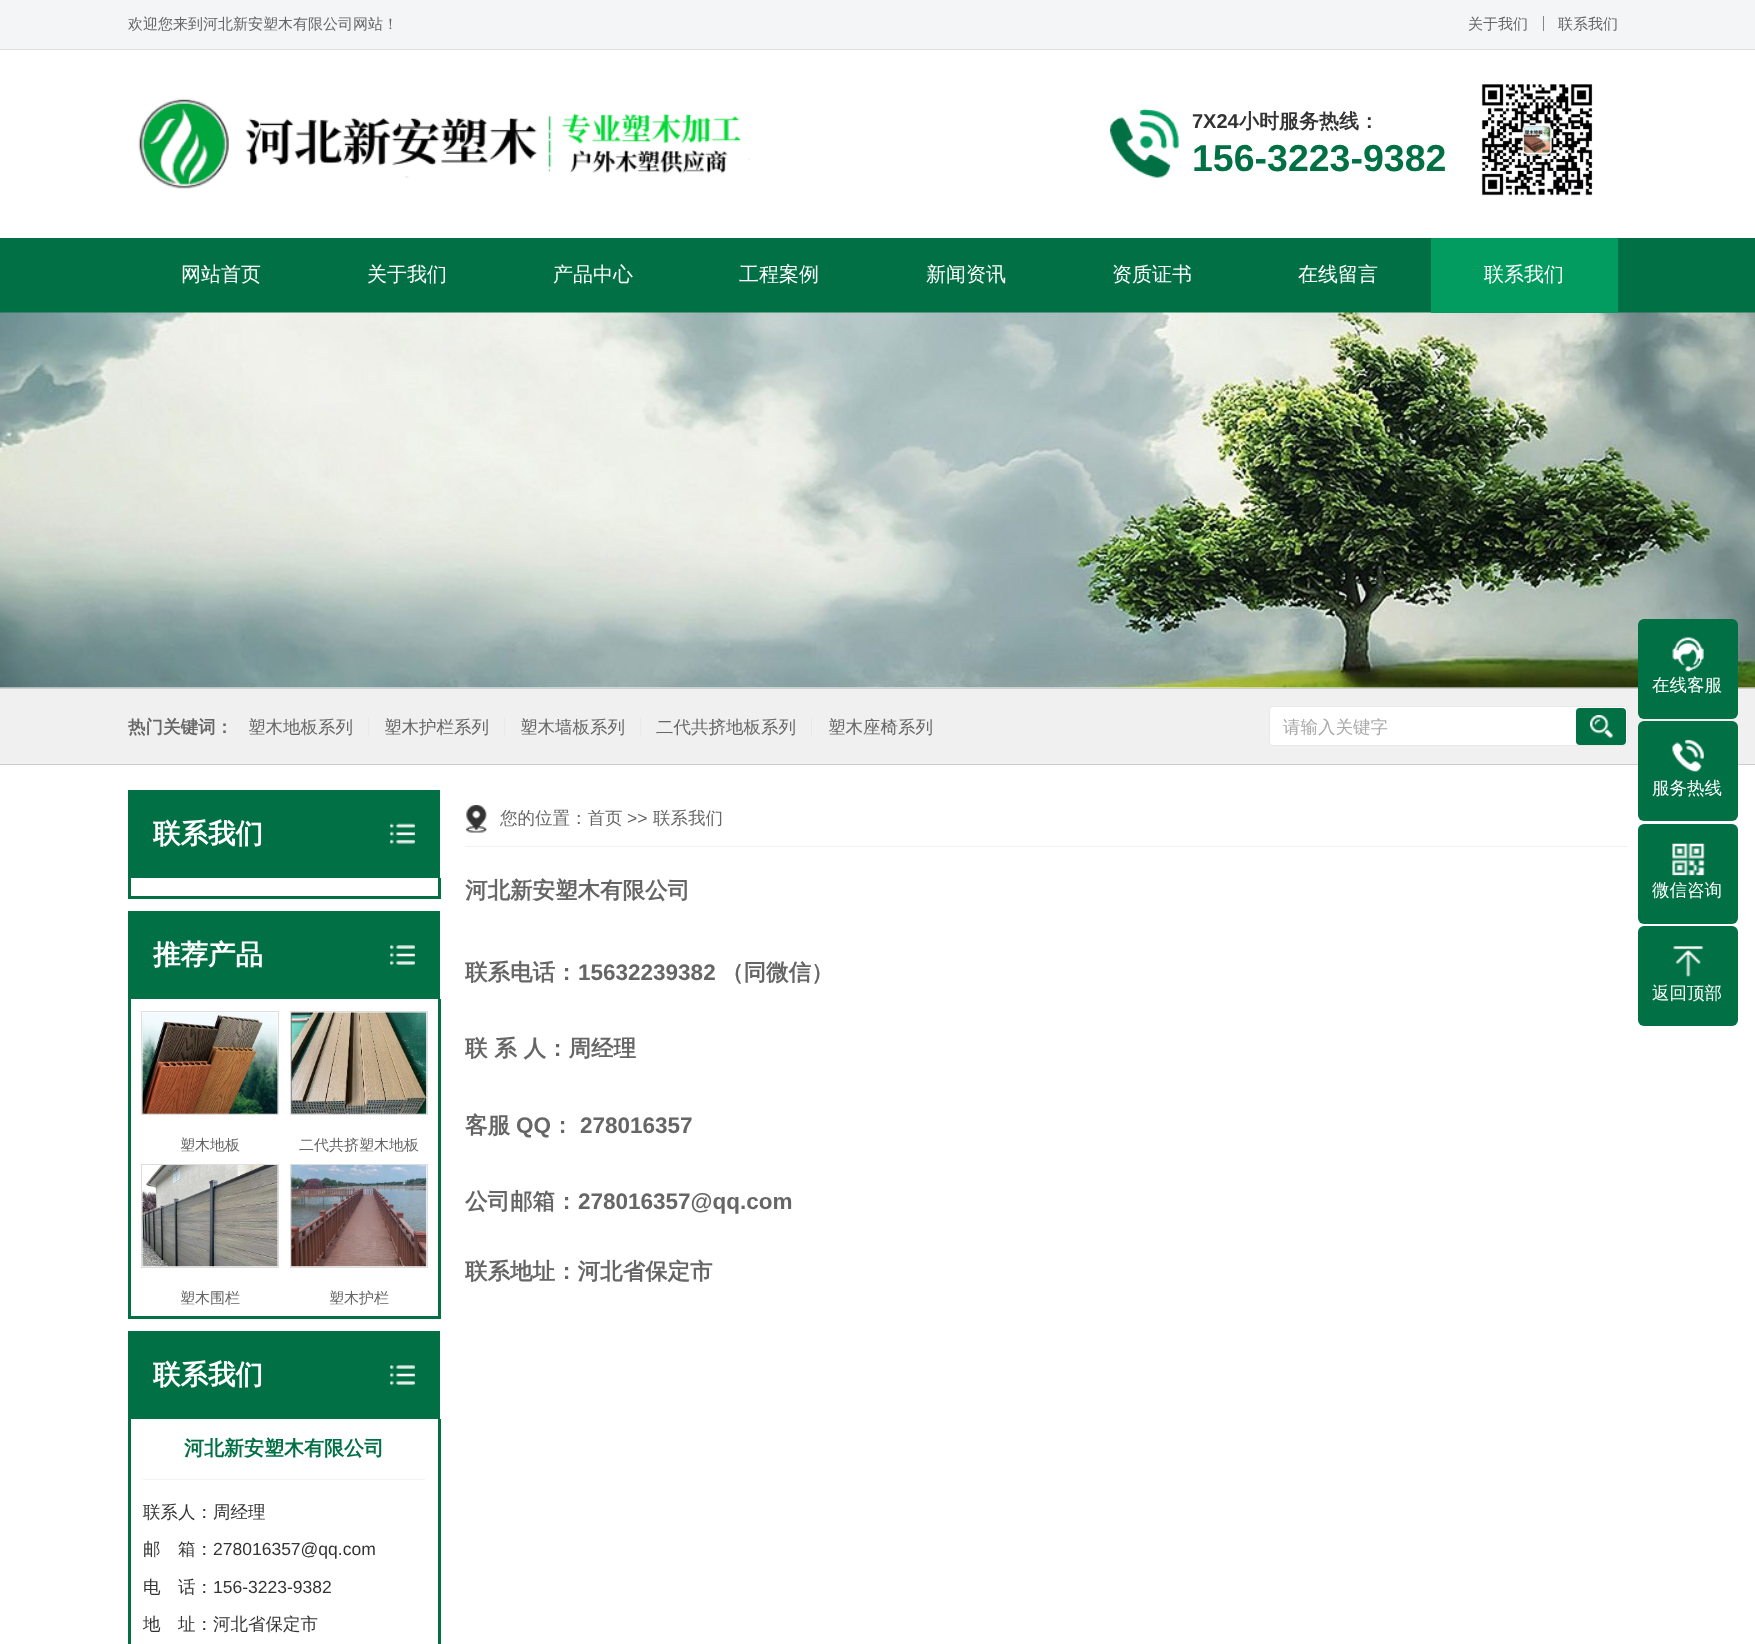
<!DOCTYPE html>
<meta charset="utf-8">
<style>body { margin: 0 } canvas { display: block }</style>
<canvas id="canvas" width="1755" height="1644"></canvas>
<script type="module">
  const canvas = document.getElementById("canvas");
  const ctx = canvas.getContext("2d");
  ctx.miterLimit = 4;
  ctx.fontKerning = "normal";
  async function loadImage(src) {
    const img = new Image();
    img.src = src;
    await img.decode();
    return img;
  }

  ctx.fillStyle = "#ffffff";
  ctx.fillRect(0, 0, 1755, 1644);
  ctx.fillStyle = "#f4f5f6";
  ctx.fillRect(0, 0, 1755, 49);
  ctx.fillStyle = "#dddddd";
  ctx.fillRect(0, 49, 1755, 1);
  ctx.font = "500 15px WenQuanYi Zen Hei";
  ctx.fillStyle = "#666666";
  ctx.fillText("欢迎您来到河北新安塑木有限公司网站！", 128, 29);
  ctx.fillText("关于我们", 1468, 29);
  ctx.fillStyle = "#858585";
  ctx.fillRect(1543, 16, 1, 15);
  ctx.fillStyle = "#666666";
  ctx.fillText("联系我们", 1558, 29);
  ctx.drawImage(await loadImage("img1.png"), 138, 98, 612, 91);
  ctx.drawImage(await loadImage("img2.png"), 1110, 108, 69, 70);
  ctx.font = "bold 20px Liberation Sans";
  ctx.fillStyle = "#333333";
  ctx.fillText("7X24", 1192, 128);
  ctx.font = "bold 20px WenQuanYi Zen Hei";
  ctx.fillText("小时服务热线：", 1239, 128);
  ctx.font = "bold 37.5px Liberation Sans";
  ctx.fillStyle = "#017045";
  ctx.fillText("156-3223-9382", 1192, 171);
  ctx.drawImage(await loadImage("img3.png"), 1481, 84, 112, 112);
  ctx.fillRect(0, 238, 1755, 75);
  ctx.font = "500 20px WenQuanYi Zen Hei";
  ctx.fillStyle = "#ffffff";
  ctx.fillText("网站首页", 181, 281);
  ctx.fillText("关于我们", 367, 281);
  ctx.fillText("产品中心", 553, 281);
  ctx.fillText("工程案例", 739, 281);
  ctx.fillText("新闻资讯", 926, 281);
  ctx.fillText("资质证书", 1112, 281);
  ctx.fillText("在线留言", 1298, 281);
  ctx.drawImage(await loadImage("img4.png"), 0, 312, 1755, 376);
  ctx.fillStyle = "#029b60";
  ctx.fillRect(1431, 238, 187, 75);
  ctx.fillStyle = "#ffffff";
  ctx.fillText("联系我们", 1484, 281);
  ctx.fillStyle = "#f0f0f0";
  ctx.fillRect(0, 689, 1755, 75);
  ctx.fillStyle = "#cccccc";
  ctx.fillRect(0, 688, 1755, 1);
  ctx.fillRect(0, 764, 1755, 1);
  ctx.font = "bold 17.5px WenQuanYi Zen Hei";
  ctx.fillStyle = "#666666";
  ctx.fillText("热门关键词：", 128, 733);
  ctx.fillStyle = "#e8e8e8";
  ctx.fillRect(368, 718, 1, 18);
  ctx.font = "500 17.5px WenQuanYi Zen Hei";
  ctx.fillStyle = "#666666";
  ctx.fillText("塑木地板系列", 248, 733);
  ctx.fillStyle = "#e8e8e8";
  ctx.fillRect(504, 718, 1, 18);
  ctx.fillStyle = "#666666";
  ctx.fillText("塑木护栏系列", 384, 733);
  ctx.fillStyle = "#e8e8e8";
  ctx.fillRect(640, 718, 1, 18);
  ctx.fillStyle = "#666666";
  ctx.fillText("塑木墙板系列", 520, 733);
  ctx.fillStyle = "#e8e8e8";
  ctx.fillRect(811, 718, 1, 18);
  ctx.fillStyle = "#666666";
  ctx.fillText("二代共挤地板系列", 656, 733);
  ctx.fillText("塑木座椅系列", 828, 733);
  ctx.fillStyle = "#ffffff";
  ctx.beginPath();
  ctx.roundRect(1269.5, 706.5, 358, 39, 3.5);
  ctx.fill();
  ctx.strokeStyle = "#e8e8e8";
  ctx.stroke();
  ctx.fillStyle = "#aaaaaa";
  ctx.fillText("请输入关键字", 1283, 733);
  ctx.fillStyle = "#017045";
  ctx.beginPath();
  ctx.roundRect(1576, 708, 50, 37, 4);
  ctx.fill();
  ctx.drawImage(await loadImage("img5.png"), 1590, 715, 23, 23);
  ctx.beginPath();
  ctx.roundRect(1638, 619, 100, 100, 6);
  ctx.fill();
  ctx.drawImage(await loadImage("img6.png"), 1672, 637, 32, 35);
  ctx.fillStyle = "#ffffff";
  ctx.fillText("在线客服", 1652, 691);
  ctx.fillStyle = "#017045";
  ctx.beginPath();
  ctx.roundRect(1638, 721, 100, 100, 6);
  ctx.fill();
  ctx.drawImage(await loadImage("img7.png"), 1672, 739, 32, 33);
  ctx.fillStyle = "#ffffff";
  ctx.fillText("服务热线", 1652, 794);
  ctx.fillStyle = "#017045";
  ctx.beginPath();
  ctx.roundRect(1638, 824, 100, 100, 6);
  ctx.fill();
  ctx.drawImage(await loadImage("img8.png"), 1672, 843, 33, 33);
  ctx.fillStyle = "#ffffff";
  ctx.fillText("微信咨询", 1652, 896);
  ctx.fillStyle = "#017045";
  ctx.beginPath();
  ctx.roundRect(1638, 926, 100, 100, 6);
  ctx.fill();
  ctx.drawImage(await loadImage("img9.png"), 1673, 946, 31, 31);
  ctx.fillStyle = "#ffffff";
  ctx.fillText("返回顶部", 1652, 999);
  ctx.fillStyle = "#017045";
  ctx.fillRect(128, 790, 312, 88);
  ctx.drawImage(await loadImage("img10.png"), 390, 823, 25, 21);
  ctx.font = "bold 27.5px WenQuanYi Zen Hei";
  ctx.fillStyle = "#ffffff";
  ctx.fillText("联系我们", 153, 843);
  ctx.fillStyle = "#017045";
  ctx.fillRect(438, 878, 3, 21);
  ctx.fillRect(128, 896, 312, 3);
  ctx.fillRect(128, 878, 3, 21);
  ctx.fillRect(128, 911, 312, 88);
  ctx.drawImage(await loadImage("img11.png"), 390, 945, 25, 20);
  ctx.fillStyle = "#ffffff";
  ctx.fillText("推荐产品", 153, 964);
  ctx.fillStyle = "#017045";
  ctx.fillRect(438, 999, 3, 320);
  ctx.fillRect(128, 1316, 312, 3);
  ctx.fillRect(128, 999, 3, 320);
  ctx.strokeStyle = "#dddddd";
  ctx.strokeRect(141.5, 1011.5, 137, 103);
  ctx.drawImage(await loadImage("img12.png"), 142, 1012, 136, 102);
  ctx.font = "500 15px WenQuanYi Zen Hei";
  ctx.fillStyle = "#666666";
  ctx.fillText("塑木地板", 180, 1150);
  ctx.strokeRect(290.5, 1011.5, 137, 103);
  ctx.drawImage(await loadImage("img13.png"), 291, 1012, 136, 102);
  ctx.fillText("二代共挤塑木地板", 299, 1150);
  ctx.strokeRect(141.5, 1164.5, 137, 103);
  ctx.drawImage(await loadImage("img14.png"), 142, 1165, 136, 102);
  ctx.fillText("塑木围栏", 180, 1303);
  ctx.strokeRect(290.5, 1164.5, 137, 103);
  ctx.drawImage(await loadImage("img15.png"), 291, 1165, 136, 102);
  ctx.fillText("塑木护栏", 329, 1303);
  ctx.fillStyle = "#017045";
  ctx.fillRect(128, 1331, 312, 88);
  ctx.drawImage(await loadImage("img11.png"), 390, 1365, 25, 20);
  ctx.font = "bold 27.5px WenQuanYi Zen Hei";
  ctx.fillStyle = "#ffffff";
  ctx.fillText("联系我们", 153, 1384);
  ctx.fillStyle = "#017045";
  ctx.fillRect(438, 1419, 3, 225);
  ctx.fillRect(128, 1419, 3, 225);
  ctx.fillStyle = "#f2f2f2";
  ctx.fillRect(143, 1479, 282, 1);
  ctx.font = "bold 20px WenQuanYi Zen Hei";
  ctx.fillStyle = "#017045";
  ctx.fillText("河北新安塑木有限公司", 184, 1455);
  ctx.font = "500 17.5px WenQuanYi Zen Hei";
  ctx.fillStyle = "#333333";
  ctx.fillText("联系人：周经理", 143, 1518);
  ctx.fillText("邮　箱：", 143, 1555);
  ctx.font = "17.5px Liberation Sans";
  ctx.fillText("278016357@qq.com", 213, 1555);
  ctx.font = "500 17.5px WenQuanYi Zen Hei";
  ctx.fillText("电　话：", 143, 1593);
  ctx.font = "17.5px Liberation Sans";
  ctx.fillText("156-3223-9382", 213, 1593);
  ctx.font = "500 17.5px WenQuanYi Zen Hei";
  ctx.fillText("地　址：河北省保定市", 143, 1630);
  ctx.fillStyle = "#f1f1f1";
  ctx.fillRect(465, 846, 1163, 1);
  ctx.drawImage(await loadImage("img16.png"), 466, 805, 21, 28);
  ctx.fillStyle = "#666666";
  ctx.fillText("您的位置：首页", 500, 824);
  ctx.font = "17.5px Liberation Sans";
  ctx.fillText(">>", 627, 824);
  ctx.font = "500 17.5px WenQuanYi Zen Hei";
  ctx.fillText("联系我们", 653, 824);
  ctx.font = "bold 22.5px WenQuanYi Zen Hei";
  ctx.fillText("河北新安塑木有限公司", 465, 898);
  ctx.fillText("联系电话：", 465, 980);
  ctx.font = "bold 22.5px Liberation Sans";
  ctx.fillText("15632239382", 578, 980);
  ctx.font = "bold 22.5px WenQuanYi Zen Hei";
  ctx.fillText("（同微信）", 721, 980);
  ctx.fillText("联 系 人：周经理", 465, 1056);
  ctx.fillText("客服", 465, 1133);
  ctx.font = "bold 22.5px Liberation Sans";
  ctx.fillText("QQ", 516, 1133);
  ctx.font = "bold 22.5px WenQuanYi Zen Hei";
  ctx.fillText("：", 551, 1133);
  ctx.font = "bold 22.5px Liberation Sans";
  ctx.fillText("278016357", 580, 1133);
  ctx.font = "bold 22.5px WenQuanYi Zen Hei";
  ctx.fillText("公司邮箱：", 465, 1209);
  ctx.font = "bold 22.5px Liberation Sans";
  ctx.fillText("278016357@qq.com", 578, 1209);
  ctx.font = "bold 22.5px WenQuanYi Zen Hei";
  ctx.fillText("联系地址：河北省保定市", 465, 1279);
</script>
